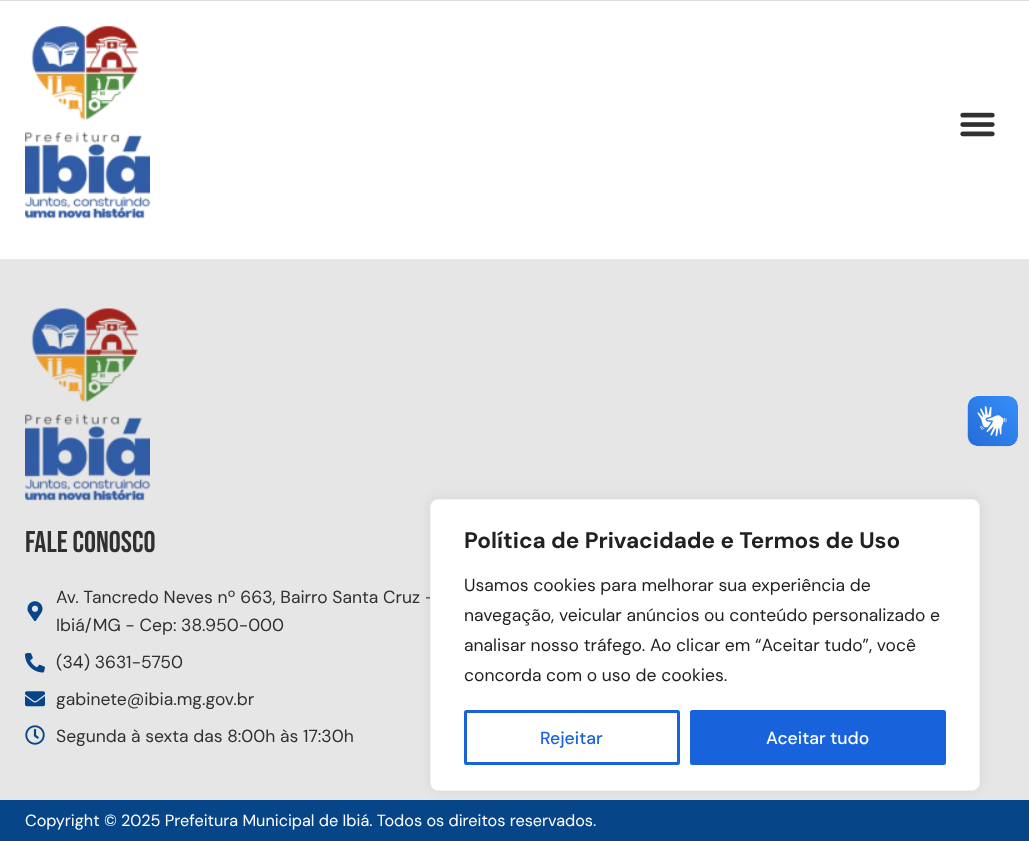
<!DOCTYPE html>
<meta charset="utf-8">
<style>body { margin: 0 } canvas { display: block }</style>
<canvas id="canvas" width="1029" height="841"></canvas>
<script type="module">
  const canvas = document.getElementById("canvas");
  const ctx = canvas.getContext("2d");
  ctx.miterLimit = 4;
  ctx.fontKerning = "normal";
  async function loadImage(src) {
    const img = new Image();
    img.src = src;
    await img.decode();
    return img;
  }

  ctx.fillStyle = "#ffffff";
  ctx.fillRect(0, 0, 1029, 841);
  ctx.fillStyle = "#dddddd";
  ctx.fillRect(0, 0, 1029, 1);
  ctx.drawImage(await loadImage("img1.png"), 25, 26, 125, 193);
  ctx.drawImage(await loadImage("img2.png"), 960, 112, 35, 25);
  ctx.fillStyle = "#e6e6e6";
  ctx.fillRect(0, 259, 1029, 541);
  ctx.drawImage(await loadImage("img3.png"), 967, 396, 51, 51);
  ctx.drawImage(await loadImage("img4.png"), 968, 396, 50, 50);
  ctx.drawImage(await loadImage("img5.png"), 25, 308, 125, 193);
  ctx.font = "30px Bebas Neue";
  ctx.fillStyle = "#303030";
  ctx.fillText("Fale conosco", 25, 552);
  ctx.drawImage(await loadImage("img6.png"), 27, 601, 16, 20);
  ctx.font = "17.5px DM Sans";
  ctx.fillText("Av. Tancredo Neves nº 663, Bairro Santa Cruz -", 56, 603);
  ctx.fillText("Ibiá/MG - Cep: 38.950-000", 56, 631);
  ctx.drawImage(await loadImage("img7.png"), 25, 653, 20, 20);
  ctx.fillText("(34) 3631-5750", 56, 668);
  ctx.drawImage(await loadImage("img8.png"), 25, 691, 20, 16);
  ctx.fillText("gabinete@ibia.mg.gov.br", 56, 705);
  ctx.drawImage(await loadImage("img9.png"), 25, 725, 20, 20);
  ctx.fillText("Segunda à sexta das 8:00h às 17:30h", 56, 742);
  ctx.fillStyle = "#074589";
  ctx.fillRect(0, 800, 1029, 41);
  ctx.font = "16.25px DM Sans";
  ctx.fillStyle = "#ffffff";
  ctx.fillText("Copyright © 2025 Prefeitura Municipal de Ibiá. Todos os direitos reservados.", 25, 826);
  ctx.fillStyle = "rgba(172, 171, 171, 0.3)";
  ctx.filter = "blur(6px)";
  ctx.beginPath();
  ctx.roundRect(430, 498, 550, 292, 8);
  ctx.fill();
  ctx.filter = "none";
  ctx.fillStyle = "#ffffff";
  ctx.beginPath();
  ctx.roundRect(430.5, 499.5, 549, 291, 7.5);
  ctx.fill();
  ctx.strokeStyle = "#f4f4f4";
  ctx.stroke();
  ctx.font = "bold 22.5px DM Sans";
  ctx.fillStyle = "#212121";
  ctx.fillText("Política de Privacidade e Termos de Uso", 464, 548);
  ctx.font = "17.5px DM Sans";
  ctx.fillText("Usamos cookies para melhorar sua experiência de", 464, 591);
  ctx.fillText("navegação, veicular anúncios ou conteúdo personalizado e", 464, 621);
  ctx.fillText("analisar nosso tráfego. Ao clicar em “Aceitar tudo”, você", 464, 651);
  ctx.fillText("concorda com o uso de cookies.", 464, 681);
  ctx.beginPath();
  ctx.roundRect(465.5, 711.5, 213, 52, 1);
  ctx.strokeStyle = "#1863dc";
  ctx.lineWidth = 3;
  ctx.stroke();
  ctx.font = "500 17.5px DM Sans";
  ctx.fillStyle = "#1863dc";
  ctx.fillText("Rejeitar", 540, 744);
  ctx.beginPath();
  ctx.roundRect(691.5, 711.5, 253, 52, 1);
  ctx.fill();
  ctx.stroke();
  ctx.fillStyle = "#ffffff";
  ctx.fillText("Aceitar tudo", 766, 744);
</script>
